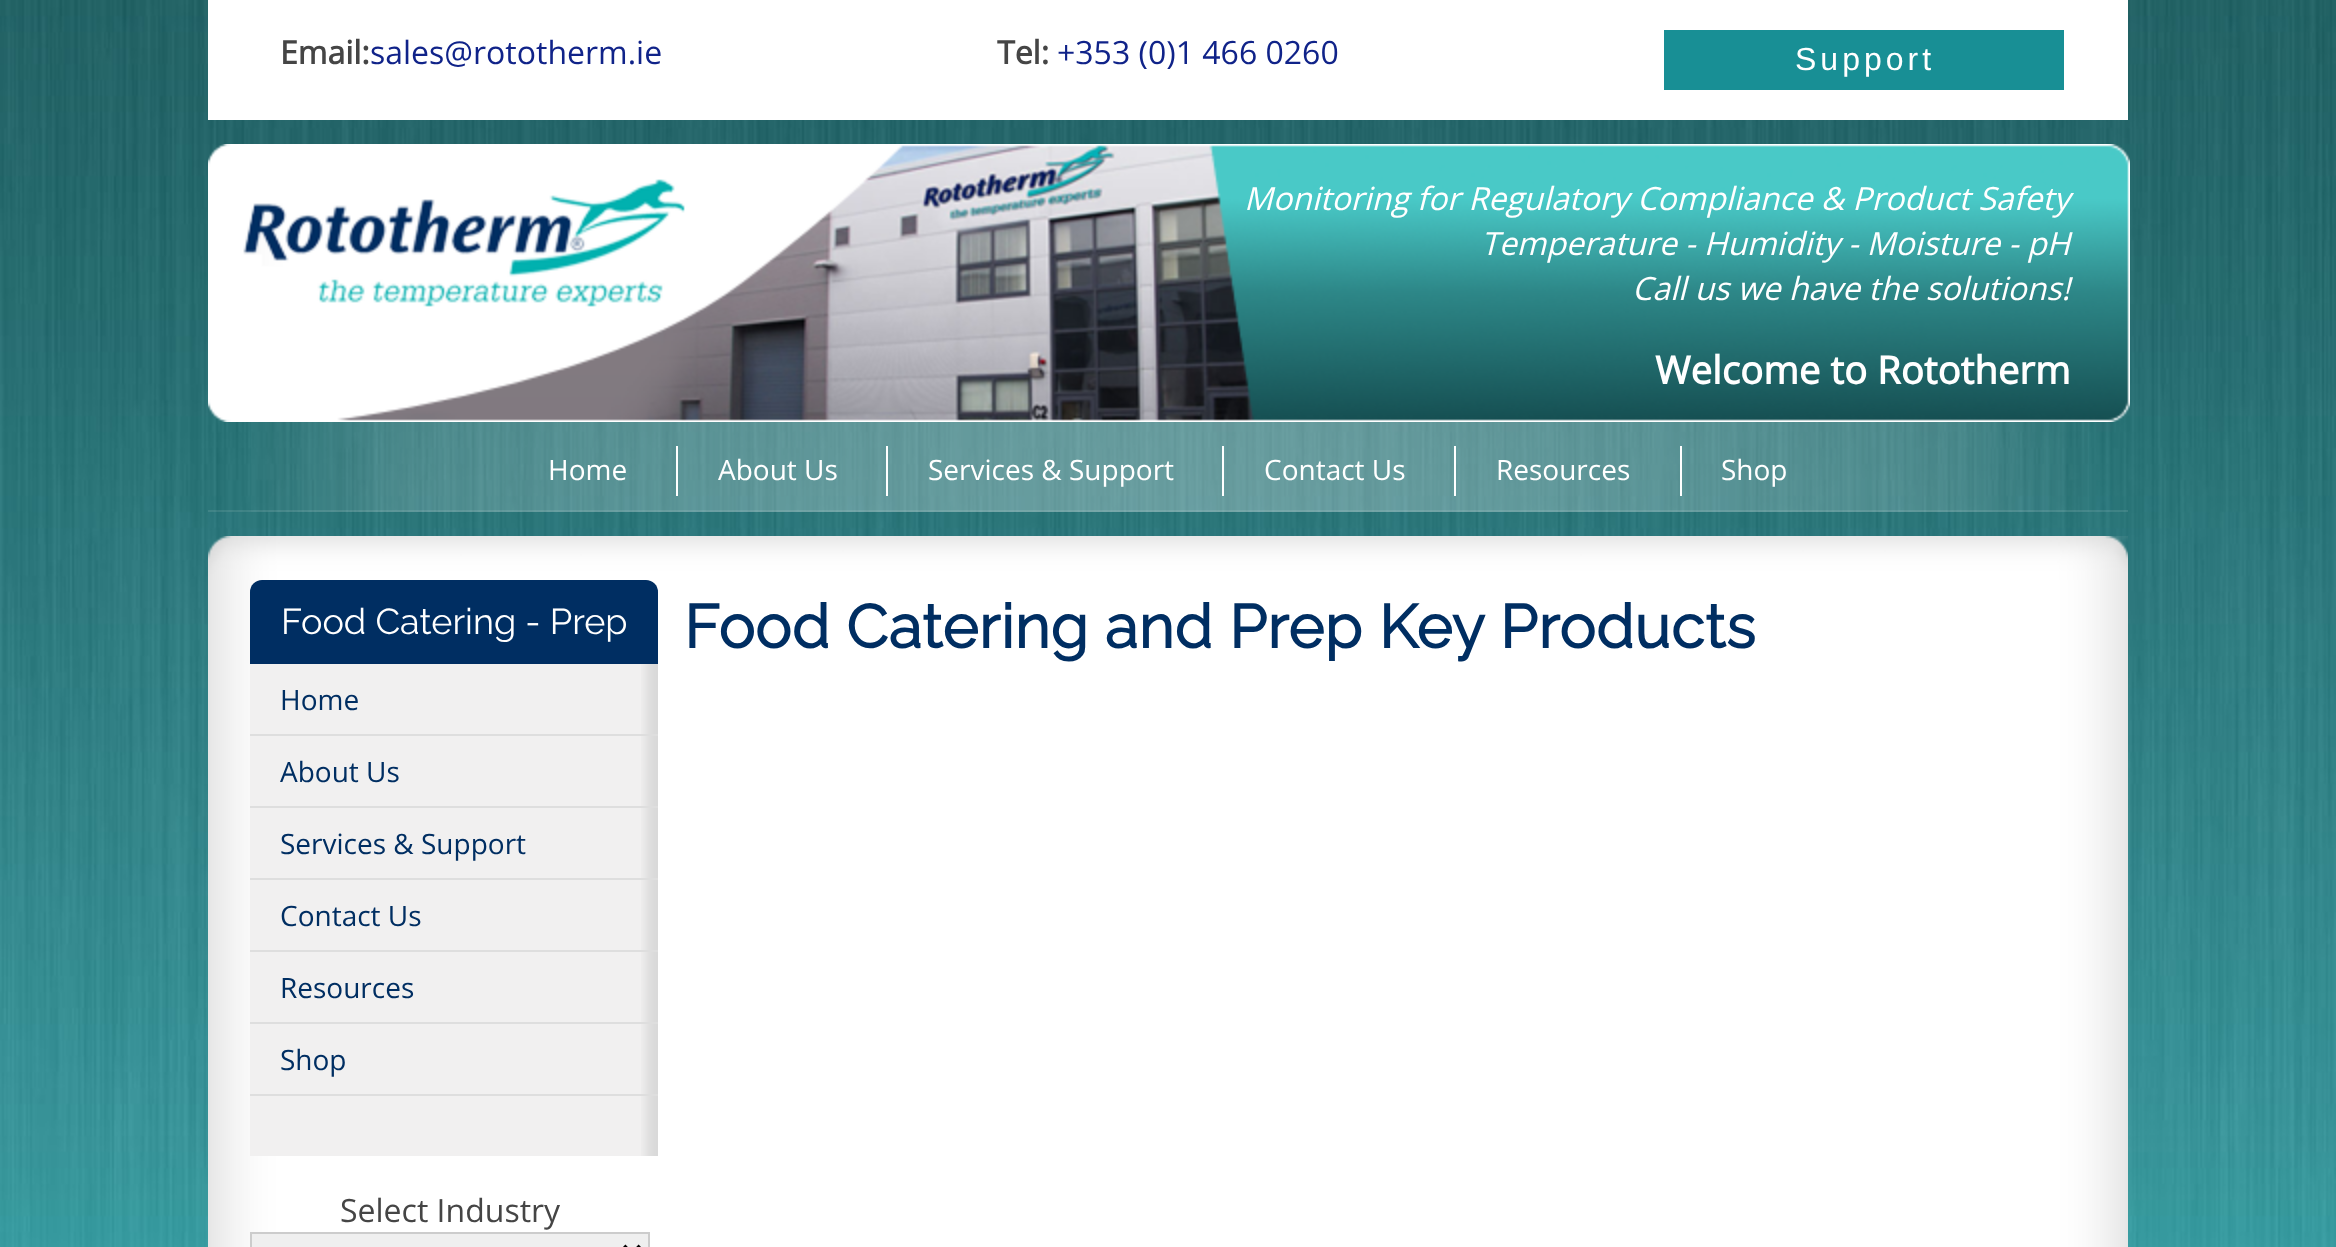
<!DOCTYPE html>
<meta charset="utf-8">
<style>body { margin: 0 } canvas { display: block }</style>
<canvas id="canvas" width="2336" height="1247"></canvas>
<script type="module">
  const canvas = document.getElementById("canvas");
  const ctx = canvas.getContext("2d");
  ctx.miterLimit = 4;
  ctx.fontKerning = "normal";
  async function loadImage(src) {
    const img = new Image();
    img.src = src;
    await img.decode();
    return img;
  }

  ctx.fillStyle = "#ffffff";
  ctx.fillRect(0, 0, 2336, 1247);
  ctx.drawImage(await loadImage("img1.png"), 0, 0, 2336, 1247);
  ctx.fillRect(208, 0, 1920, 120);
  ctx.font = "bold 32px Open Sans";
  ctx.fillStyle = "#454545";
  ctx.fillText("Email:", 280, 64);
  ctx.font = "32px Open Sans";
  ctx.fillStyle = "#102389";
  ctx.fillText("sales@rototherm.ie", 370, 64);
  ctx.font = "bold 32px Open Sans";
  ctx.fillStyle = "#454545";
  ctx.fillText("Tel:", 997, 64);
  ctx.font = "32px Open Sans";
  ctx.fillStyle = "#102389";
  ctx.fillText("+353 (0)1 466 0260", 1057, 64);
  ctx.fillStyle = "#188f95";
  ctx.fillRect(1664, 30, 400, 60);
  ctx.letterSpacing = "4px";
  ctx.font = "32px Liberation Sans";
  ctx.fillStyle = "#ffffff";
  ctx.fillText("Support", 1795, 70);
  ctx.drawImage(await loadImage("img2.png"), 208, 144, 1922, 278);
  ctx.letterSpacing = "0px";
  ctx.font = "italic 32px Open Sans";
  ctx.fillText("Monitoring for Regulatory Compliance & Product Safety", 1244, 210);
  ctx.fillText("Temperature - Humidity - Moisture - pH", 1481, 255);
  ctx.fillText("Call us we have the solutions!", 1632, 300);
  ctx.font = "bold 38.4px Open Sans";
  ctx.fillText("Welcome to Rototherm", 1655, 384);
  ctx.drawImage(await loadImage("img3.png"), 251, 422, 1838, 90);
  ctx.fillStyle = "rgba(255, 255, 255, 0.1)";
  ctx.fillRect(208, 510, 1920, 2);
  ctx.font = "28px Open Sans";
  ctx.fillStyle = "#ffffff";
  ctx.fillText("Home", 548, 480);
  ctx.fillRect(676, 446, 2, 50);
  ctx.fillText("About Us", 718, 480);
  ctx.fillRect(886, 446, 2, 50);
  ctx.fillText("Services & Support", 928, 480);
  ctx.fillRect(1222, 446, 2, 50);
  ctx.fillText("Contact Us", 1264, 480);
  ctx.fillRect(1454, 446, 2, 50);
  ctx.fillText("Resources", 1496, 480);
  ctx.fillRect(1680, 446, 2, 50);
  ctx.fillText("Shop", 1721, 480);
  ctx.drawImage(await loadImage("img4.png"), 208, 536, 1920, 44);
  ctx.drawImage(await loadImage("img5.png"), 208, 580, 1920, 667);
  ctx.fillStyle = "#002e62";
  ctx.beginPath();
  ctx.roundRect(250, 580, 408, 84, [12, 12, 0, 0]);
  ctx.fill();
  ctx.font = "100 36px Raleway";
  ctx.fillStyle = "#ffffff";
  ctx.fillText("Food Catering - Prep", 281, 634);
  ctx.fillStyle = "#f1f0f0";
  ctx.fillRect(250, 664, 391, 492);
  ctx.drawImage(await loadImage("img6.png"), 641, 664, 17, 492);
  ctx.fillStyle = "#dedede";
  ctx.fillRect(250, 734, 408, 2);
  ctx.font = "28px Open Sans";
  ctx.fillStyle = "#002e62";
  ctx.fillText("Home", 280, 710);
  ctx.fillStyle = "#dedede";
  ctx.fillRect(250, 806, 408, 2);
  ctx.fillStyle = "#002e62";
  ctx.fillText("About Us", 280, 782);
  ctx.fillStyle = "#dedede";
  ctx.fillRect(250, 878, 408, 2);
  ctx.fillStyle = "#002e62";
  ctx.fillText("Services & Support", 280, 854);
  ctx.fillStyle = "#dedede";
  ctx.fillRect(250, 950, 408, 2);
  ctx.fillStyle = "#002e62";
  ctx.fillText("Contact Us", 280, 926);
  ctx.fillStyle = "#dedede";
  ctx.fillRect(250, 1022, 408, 2);
  ctx.fillStyle = "#002e62";
  ctx.fillText("Resources", 280, 998);
  ctx.fillStyle = "#dedede";
  ctx.fillRect(250, 1094, 408, 2);
  ctx.fillStyle = "#002e62";
  ctx.fillText("Shop", 280, 1070);
  ctx.font = "32px Open Sans";
  ctx.fillStyle = "#454545";
  ctx.fillText("Select Industry", 340, 1222);
  ctx.fillStyle = "#efefef";
  ctx.beginPath();
  ctx.rect(251, 1233, 398, 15);
  ctx.fill();
  ctx.strokeStyle = "#cccccc";
  ctx.lineWidth = 2;
  ctx.stroke();
  ctx.beginPath();
  ctx.moveTo(624, 1246);
  ctx.lineTo(632, 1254);
  ctx.lineTo(640, 1246);
  ctx.strokeStyle = "#000000";
  ctx.lineWidth = 4;
  ctx.stroke();
  ctx.letterSpacing = "0.6px";
  ctx.font = "bold 60.75px Raleway";
  ctx.fillStyle = "#002e62";
  ctx.fillText("Food Catering and Prep Key Products", 684, 648);
</script>
